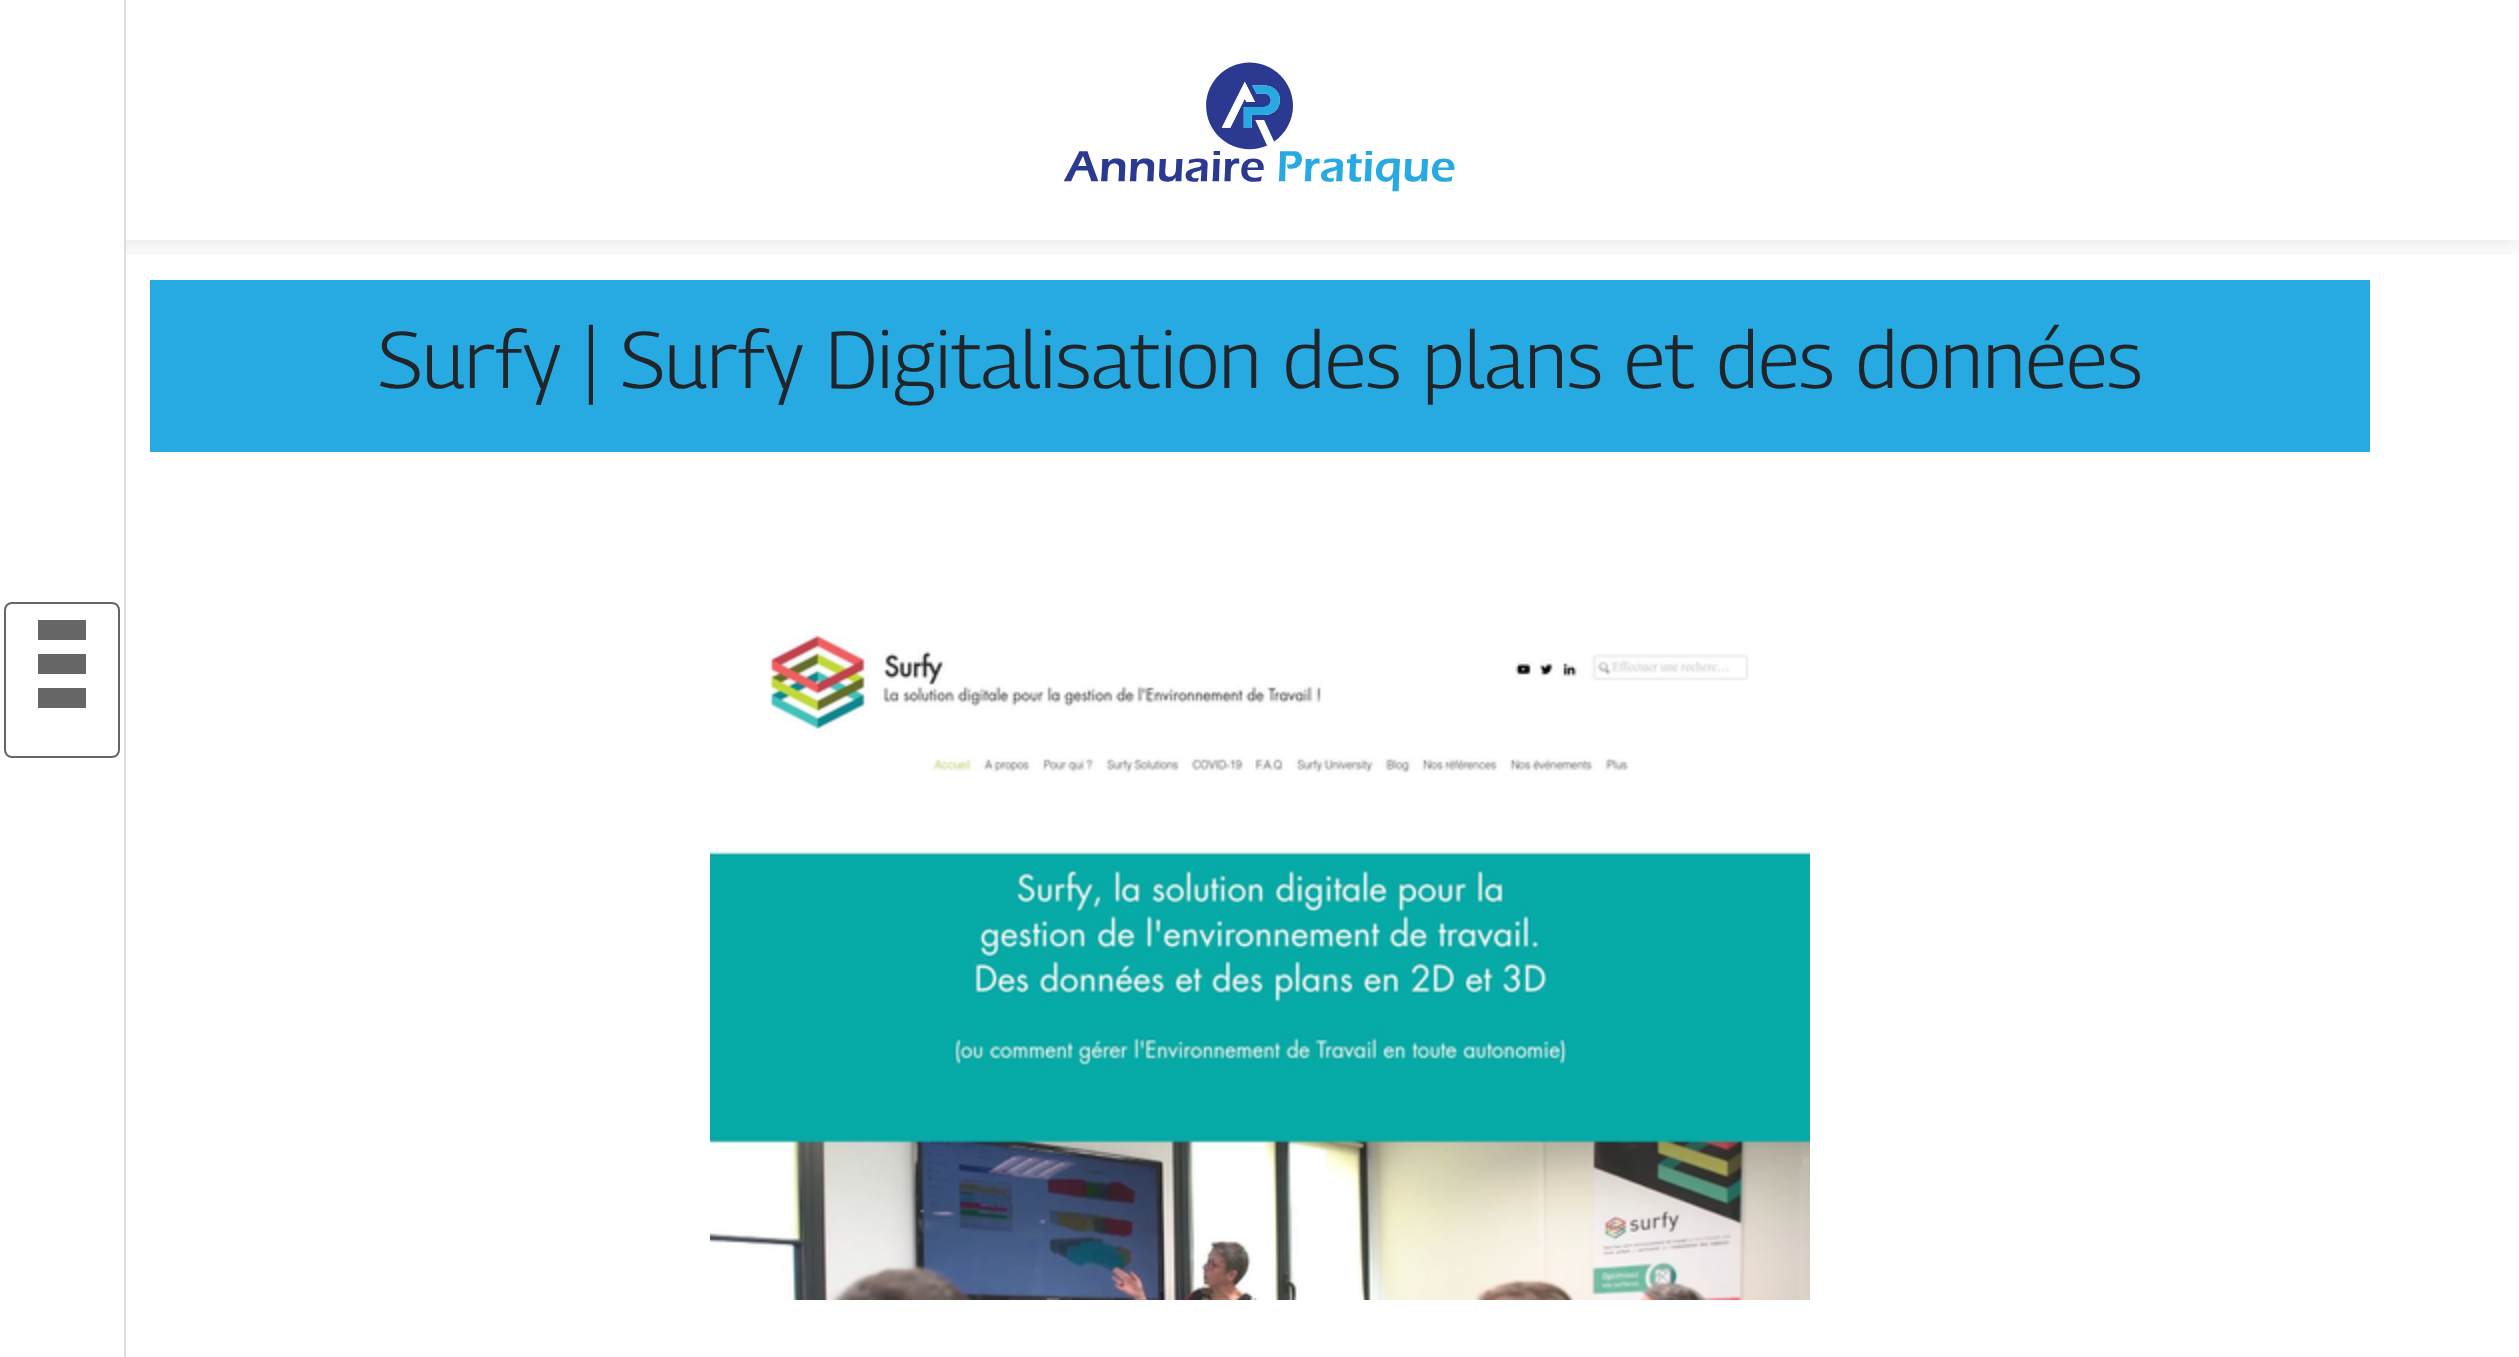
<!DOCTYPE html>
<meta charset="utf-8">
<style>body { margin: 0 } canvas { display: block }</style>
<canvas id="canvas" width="2519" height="1357"></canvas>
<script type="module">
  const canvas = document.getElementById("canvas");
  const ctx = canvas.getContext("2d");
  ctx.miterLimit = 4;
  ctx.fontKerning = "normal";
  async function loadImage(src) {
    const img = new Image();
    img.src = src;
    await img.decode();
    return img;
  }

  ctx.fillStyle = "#ffffff";
  ctx.fillRect(0, 0, 2519, 1357);
  ctx.fillStyle = "#27aae1";
  ctx.fillRect(150, 280, 2220, 172);
  ctx.save();
  ctx.beginPath();
  ctx.rect(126, 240, 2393, 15);
  ctx.clip();
  ctx.fillStyle = "rgba(0, 0, 0, 0.1)";
  ctx.filter = "blur(13px)";
  ctx.beginPath();
  ctx.rect(0, 4, 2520, 240);
  ctx.fill();
  ctx.filter = "none";
  ctx.restore();
  ctx.fillStyle = "#ffffff";
  ctx.fillRect(0, 240, 124, 21);
  ctx.fillStyle = "#dddddd";
  ctx.fillRect(124, 0, 2, 1357);
  ctx.beginPath();
  ctx.roundRect(5, 603, 114, 154, 7);
  ctx.strokeStyle = "#666666";
  ctx.lineWidth = 2;
  ctx.stroke();
  ctx.fillStyle = "#666666";
  ctx.fillRect(38, 620, 48, 20);
  ctx.fillRect(38, 654, 48, 20);
  ctx.fillRect(38, 688, 48, 20);
  ctx.drawImage(await loadImage("img1.png"), 1063, 62, 392, 130);
  ctx.font = "100 80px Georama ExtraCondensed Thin";
  ctx.fillStyle = "#212529";
  ctx.fillText("Surfy | Surfy Digitalisation des plans et des données", 378, 388);
  ctx.drawImage(await loadImage("img2.png"), 710, 635, 1100, 665);
</script>
